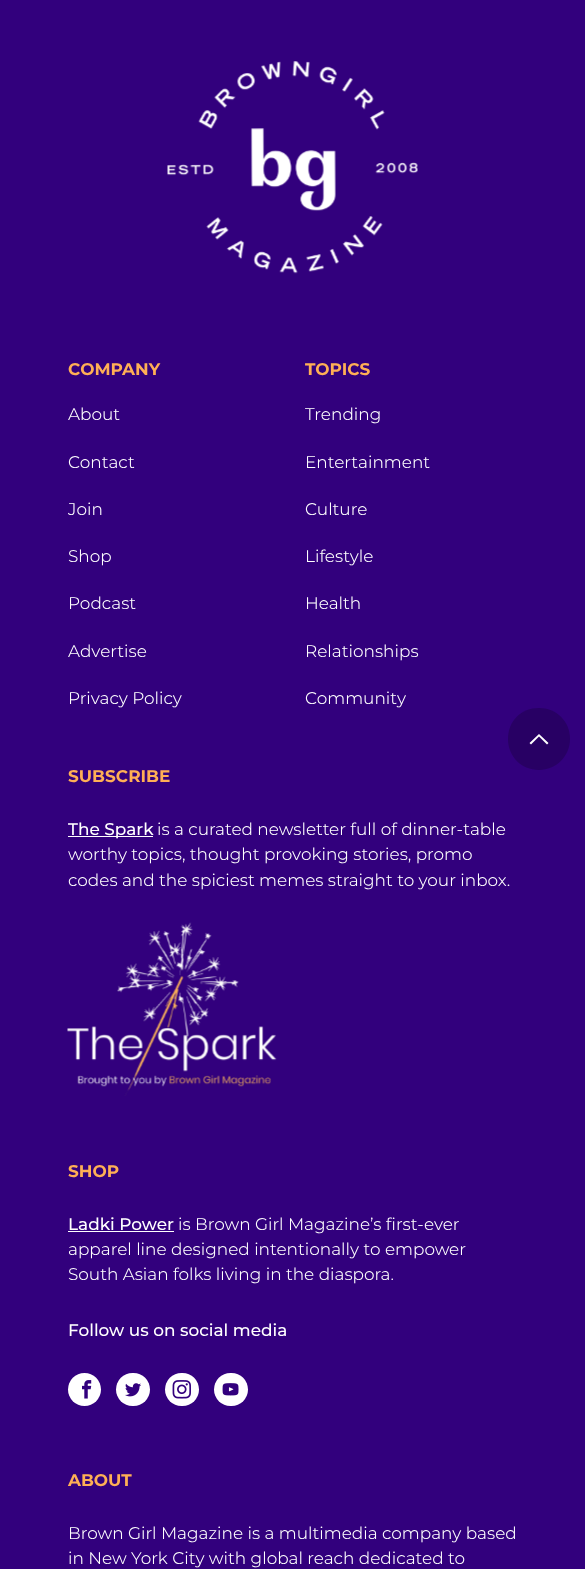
<!DOCTYPE html>
<meta charset="utf-8">
<style>body { margin: 0 } canvas { display: block }</style>
<canvas id="canvas" width="585" height="1569"></canvas>
<script type="module">
  const canvas = document.getElementById("canvas");
  const ctx = canvas.getContext("2d");
  ctx.miterLimit = 4;
  ctx.fontKerning = "normal";
  async function loadImage(src) {
    const img = new Image();
    img.src = src;
    await img.decode();
    return img;
  }

  ctx.fillStyle = "#32007d";
  ctx.fillRect(0, 0, 585, 1569);
  ctx.drawImage(await loadImage("img1.png"), 167, 61, 251, 213);
  ctx.font = "bold 16.9px Montserrat";
  ctx.fillStyle = "#ffaf55";
  ctx.fillText("COMPANY", 68, 375);
  ctx.font = "300 16.9px Montserrat";
  ctx.fillStyle = "#ffffff";
  ctx.fillText("About", 68, 420);
  ctx.fillText("Contact", 68, 468);
  ctx.fillText("Join", 68, 515);
  ctx.fillText("Shop", 68, 562);
  ctx.fillText("Podcast", 68, 609);
  ctx.fillText("Advertise", 68, 657);
  ctx.fillText("Privacy Policy", 68, 704);
  ctx.font = "bold 16.9px Montserrat";
  ctx.fillStyle = "#ffaf55";
  ctx.fillText("TOPICS", 305, 375);
  ctx.font = "300 16.9px Montserrat";
  ctx.fillStyle = "#ffffff";
  ctx.fillText("Trending", 305, 420);
  ctx.fillText("Entertainment", 305, 468);
  ctx.fillText("Culture", 305, 515);
  ctx.fillText("Lifestyle", 305, 562);
  ctx.fillText("Health", 305, 609);
  ctx.fillText("Relationships", 305, 657);
  ctx.fillText("Community", 305, 704);
  ctx.font = "bold 16.9px Montserrat";
  ctx.fillStyle = "#ffaf55";
  ctx.fillText("SUBSCRIBE", 68, 782);
  ctx.fillStyle = "#ffffff";
  ctx.fillRect(68, 836, 85, 1);
  ctx.font = "500 16.9px Montserrat";
  ctx.fillText("The Spark", 68, 835);
  ctx.font = "300 16.9px Montserrat";
  ctx.fillText("is a curated newsletter full of dinner-table", 157, 835);
  ctx.fillText("worthy topics, thought provoking stories, promo", 68, 860);
  ctx.fillText("codes and the spiciest memes straight to your inbox.", 68, 886);
  ctx.drawImage(await loadImage("img2.png"), 67, 922, 210, 174);
  ctx.font = "bold 16.9px Montserrat";
  ctx.fillStyle = "#ffaf55";
  ctx.fillText("SHOP", 68, 1177);
  ctx.font = "500 16.9px Montserrat";
  ctx.fillStyle = "#ffffff";
  ctx.fillText("Ladki Power", 68, 1230);
  ctx.fillRect(68, 1231, 106, 1);
  ctx.font = "300 16.9px Montserrat";
  ctx.fillText("is Brown Girl Magazine’s first-ever", 178, 1230);
  ctx.fillText("apparel line designed intentionally to empower", 68, 1255);
  ctx.fillText("South Asian folks living in the diaspora.", 68, 1280);
  ctx.font = "500 16.9px Montserrat";
  ctx.fillText("Follow us on social media", 68, 1336);
  ctx.beginPath();
  ctx.arc(84.5, 1389.5, 16.5, 0, Math.PI * 2);
  ctx.fill();
  ctx.drawImage(await loadImage("img3.png"), 82, 1380, 10, 19);
  ctx.beginPath();
  ctx.roundRect(116, 1373, 34, 33, 16.5);
  ctx.fill();
  ctx.drawImage(await loadImage("img4.png"), 125, 1383, 16, 14);
  ctx.beginPath();
  ctx.roundRect(165, 1373, 34, 33, 16.5);
  ctx.fill();
  ctx.drawImage(await loadImage("img5.png"), 172, 1380, 19, 19);
  ctx.beginPath();
  ctx.roundRect(214, 1373, 34, 33, 16.5);
  ctx.fill();
  ctx.drawImage(await loadImage("img6.png"), 222, 1383, 17, 13);
  ctx.font = "bold 16.9px Montserrat";
  ctx.fillStyle = "#ffaf55";
  ctx.fillText("ABOUT", 68, 1486);
  ctx.font = "300 16.9px Montserrat";
  ctx.fillStyle = "#ffffff";
  ctx.fillText("Brown Girl Magazine is a multimedia company based", 68, 1539);
  ctx.fillText("in New York City with global reach dedicated to", 68, 1564);
  ctx.fillStyle = "#280064";
  ctx.beginPath();
  ctx.moveTo(570, 739);
  ctx.bezierCurveTo(570, 756, 556, 770, 539, 770);
  ctx.bezierCurveTo(521, 770, 508, 756, 508, 739);
  ctx.bezierCurveTo(508, 721, 521, 708, 539, 708);
  ctx.bezierCurveTo(556, 708, 570, 721, 570, 739);
  ctx.closePath();
  ctx.fill();
  ctx.fillStyle = "#ffffff";
  ctx.beginPath();
  ctx.moveTo(548.5, 743);
  ctx.lineTo(547, 744.5);
  ctx.lineTo(539, 736.5);
  ctx.lineTo(531, 744.5);
  ctx.lineTo(529.5, 743);
  ctx.lineTo(539, 734);
  ctx.closePath();
  ctx.fill();
</script>
